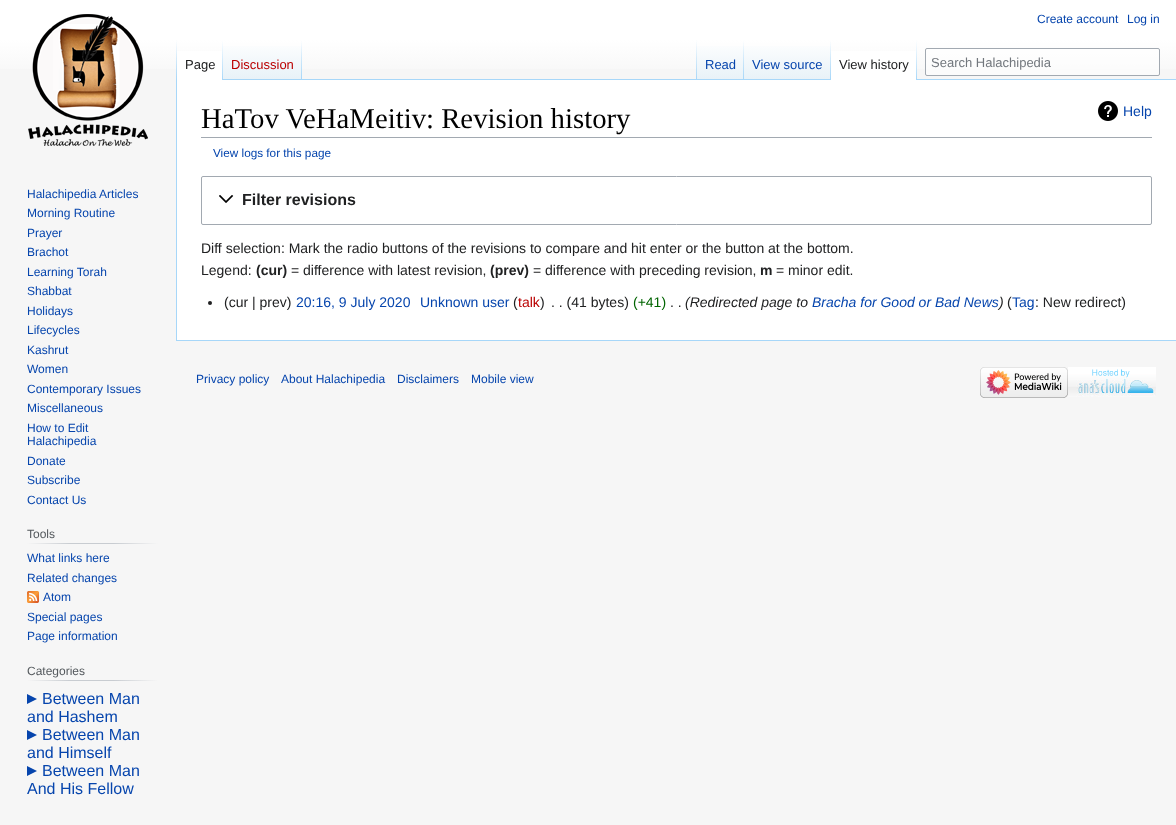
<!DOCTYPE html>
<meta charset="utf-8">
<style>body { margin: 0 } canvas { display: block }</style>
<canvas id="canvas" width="1176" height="825"></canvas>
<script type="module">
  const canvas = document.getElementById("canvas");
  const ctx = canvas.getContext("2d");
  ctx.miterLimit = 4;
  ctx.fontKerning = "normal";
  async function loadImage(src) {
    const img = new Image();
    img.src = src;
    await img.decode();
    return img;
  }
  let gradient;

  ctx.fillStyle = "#f6f6f6";
  ctx.fillRect(0, 0, 1176, 825);
  gradient = ctx.createLinearGradient(588, 0, 588, 80);
  gradient.addColorStop(0.5, "#ffffff");
  gradient.addColorStop(1, "#f6f6f6");
  ctx.fillStyle = gradient;
  ctx.fillRect(0, 0, 1176, 69);
  ctx.font = "12px Liberation Sans";
  ctx.fillStyle = "#0645ad";
  ctx.fillText("Create account", 1037, 23);
  ctx.fillText("Log in", 1127, 23);
  ctx.fillStyle = "#a7d7f9";
  ctx.fillRect(176, 340, 1000, 1);
  ctx.fillRect(176, 79, 1, 262);
  gradient = ctx.createLinearGradient(177, 40, 177, 80);
  gradient.addColorStop(0, "rgba(167, 215, 249, 0)");
  gradient.addColorStop(1, "#a7d7f9");
  ctx.fillStyle = gradient;
  ctx.fillRect(176, 40, 1, 40);
  ctx.fillStyle = "#ffffff";
  ctx.fillRect(177, 51, 45, 29);
  gradient = ctx.createLinearGradient(223, 40, 223, 80);
  gradient.addColorStop(0, "#ffffff");
  gradient.addColorStop(1, "#a7d7f9");
  ctx.fillStyle = gradient;
  ctx.fillRect(222, 40, 1, 40);
  ctx.font = "13px Liberation Sans";
  ctx.fillStyle = "#202122";
  ctx.fillText("Page", 185, 69);
  gradient = ctx.createLinearGradient(263, 80, 263, 40);
  gradient.addColorStop(0, "#77c1f6");
  gradient.addColorStop(0.03, "#e8f2f8");
  gradient.addColorStop(1, "#ffffff");
  ctx.fillStyle = gradient;
  ctx.fillRect(223, 46, 79, 34);
  gradient = ctx.createLinearGradient(302, 40, 302, 80);
  gradient.addColorStop(0, "rgba(167, 215, 249, 0)");
  gradient.addColorStop(1, "#a7d7f9");
  ctx.fillStyle = gradient;
  ctx.fillRect(301, 40, 1, 40);
  ctx.fillStyle = "#ba0000";
  ctx.fillText("Discussion", 231, 69);
  ctx.fillStyle = "#a7d7f9";
  ctx.fillRect(302, 79, 874, 1);
  gradient = ctx.createLinearGradient(697, 40, 697, 80);
  gradient.addColorStop(0, "rgba(167, 215, 249, 0)");
  gradient.addColorStop(1, "#a7d7f9");
  ctx.fillStyle = gradient;
  ctx.fillRect(696, 40, 1, 40);
  gradient = ctx.createLinearGradient(721, 80, 721, 40);
  gradient.addColorStop(0, "#77c1f6");
  gradient.addColorStop(0.03, "#e8f2f8");
  gradient.addColorStop(1, "#ffffff");
  ctx.fillStyle = gradient;
  ctx.fillRect(697, 46, 47, 33);
  gradient = ctx.createLinearGradient(744, 40, 744, 80);
  gradient.addColorStop(0, "rgba(167, 215, 249, 0)");
  gradient.addColorStop(1, "#a7d7f9");
  ctx.fillStyle = gradient;
  ctx.fillRect(743, 40, 1, 40);
  ctx.fillStyle = "#0645ad";
  ctx.fillText("Read", 705, 69);
  gradient = ctx.createLinearGradient(788, 80, 788, 40);
  gradient.addColorStop(0, "#77c1f6");
  gradient.addColorStop(0.03, "#e8f2f8");
  gradient.addColorStop(1, "#ffffff");
  ctx.fillStyle = gradient;
  ctx.fillRect(744, 46, 87, 33);
  gradient = ctx.createLinearGradient(831, 40, 831, 80);
  gradient.addColorStop(0, "rgba(167, 215, 249, 0)");
  gradient.addColorStop(1, "#a7d7f9");
  ctx.fillStyle = gradient;
  ctx.fillRect(830, 40, 1, 40);
  ctx.fillStyle = "#0645ad";
  ctx.fillText("View source", 752, 69);
  ctx.fillStyle = "#ffffff";
  ctx.fillRect(831, 51, 85, 29);
  gradient = ctx.createLinearGradient(917, 40, 917, 80);
  gradient.addColorStop(0, "#ffffff");
  gradient.addColorStop(1, "#a7d7f9");
  ctx.fillStyle = gradient;
  ctx.fillRect(916, 40, 1, 40);
  ctx.fillStyle = "#202122";
  ctx.fillText("View history", 839, 69);
  ctx.fillStyle = "rgba(255, 255, 255, 0.5)";
  ctx.beginPath();
  ctx.roundRect(925.5, 48.5, 234, 27, 1.5);
  ctx.fill();
  ctx.strokeStyle = "#a2a9b1";
  ctx.stroke();
  ctx.fillStyle = "#72777d";
  ctx.fillText("Search Halachipedia", 931, 67);
  ctx.drawImage(await loadImage("img1.png"), 28, 14, 120, 132);
  ctx.font = "12px Liberation Sans";
  ctx.fillStyle = "#0645ad";
  ctx.fillText("Halachipedia Articles", 27, 198);
  ctx.fillText("Morning Routine", 27, 217);
  ctx.fillText("Prayer", 27, 237);
  ctx.fillText("Brachot", 27, 256);
  ctx.fillText("Learning Torah", 27, 276);
  ctx.fillText("Shabbat", 27, 295);
  ctx.fillText("Holidays", 27, 315);
  ctx.fillText("Lifecycles", 27, 334);
  ctx.fillText("Kashrut", 27, 354);
  ctx.fillText("Women", 27, 373);
  ctx.fillText("Contemporary Issues", 27, 393);
  ctx.fillText("Miscellaneous", 27, 412);
  ctx.fillText("How to Edit", 27, 432);
  ctx.fillText("Halachipedia", 27, 445);
  ctx.fillText("Donate", 27, 465);
  ctx.fillText("Subscribe", 27, 484);
  ctx.fillText("Contact Us", 27, 504);
  gradient = ctx.createLinearGradient(27, 544, 158, 544);
  gradient.addColorStop(0, "#f6f6f6");
  gradient.addColorStop(0.33, "#c8ccd1");
  gradient.addColorStop(0.66, "#c8ccd1");
  gradient.addColorStop(1, "#f6f6f6");
  ctx.fillStyle = gradient;
  ctx.fillRect(27, 543, 131, 1);
  ctx.fillStyle = "#54595d";
  ctx.fillText("Tools", 27, 538);
  ctx.fillStyle = "#0645ad";
  ctx.fillText("What links here", 27, 562);
  ctx.fillText("Related changes", 27, 582);
  ctx.drawImage(await loadImage("img2.png"), 27, 591, 12, 12);
  ctx.fillText("Atom", 43, 601);
  ctx.fillText("Special pages", 27, 621);
  ctx.fillText("Page information", 27, 640);
  gradient = ctx.createLinearGradient(27, 681, 158, 681);
  gradient.addColorStop(0, "#f6f6f6");
  gradient.addColorStop(0.33, "#c8ccd1");
  gradient.addColorStop(0.66, "#c8ccd1");
  gradient.addColorStop(1, "#f6f6f6");
  ctx.fillStyle = gradient;
  ctx.fillRect(27, 680, 131, 1);
  ctx.fillStyle = "#54595d";
  ctx.fillText("Categories", 27, 675);
  ctx.fillStyle = "#0645ad";
  ctx.beginPath();
  ctx.moveTo(27, 704);
  ctx.lineTo(27, 694);
  ctx.lineTo(37, 699);
  ctx.closePath();
  ctx.fill();
  ctx.font = "16px Liberation Sans";
  ctx.fillText("Between Man", 42, 704);
  ctx.fillText("and Hashem", 27, 722);
  ctx.beginPath();
  ctx.moveTo(27, 740);
  ctx.lineTo(27, 730);
  ctx.lineTo(37, 735);
  ctx.closePath();
  ctx.fill();
  ctx.fillText("Between Man", 42, 740);
  ctx.fillText("and Himself", 27, 758);
  ctx.beginPath();
  ctx.moveTo(27, 776);
  ctx.lineTo(27, 766);
  ctx.lineTo(37, 771);
  ctx.closePath();
  ctx.fill();
  ctx.fillText("Between Man", 42, 776);
  ctx.fillText("And His Fellow", 27, 794);
  ctx.fillStyle = "#ffffff";
  ctx.fillRect(177, 80, 999, 260);
  ctx.fillStyle = "#a2a9b1";
  ctx.fillRect(201, 137, 951, 1);
  ctx.font = "28.75px Liberation Serif";
  ctx.fillStyle = "#000000";
  ctx.fillText("HaTov VeHaMeitiv: Revision history", 201, 128);
  ctx.drawImage(await loadImage("img3.png"), 1098, 101, 20, 20);
  ctx.font = "14px Liberation Sans";
  ctx.fillStyle = "#0645ad";
  ctx.fillText("Help", 1123, 116);
  ctx.font = "11.75px Liberation Sans";
  ctx.fillText("View logs for this page", 213, 157);
  ctx.beginPath();
  ctx.roundRect(201.5, 176.5, 950, 48, 1.5);
  ctx.stroke();
  ctx.drawImage(await loadImage("img4.png"), 219, 195, 15, 8);
  ctx.font = "bold 16px Liberation Sans";
  ctx.fillStyle = "#202122";
  ctx.fillText("Filter revisions", 242, 205);
  ctx.font = "14px Liberation Sans";
  ctx.fillText("Diff selection: Mark the radio buttons of the revisions to compare and hit enter or the button at the bottom.", 201, 253);
  ctx.fillText("Legend:", 201, 275);
  ctx.font = "bold 14px Liberation Sans";
  ctx.fillText("(cur)", 256, 275);
  ctx.font = "14px Liberation Sans";
  ctx.fillText("= difference with latest revision,", 291, 275);
  ctx.font = "bold 14px Liberation Sans";
  ctx.fillText("(prev)", 490, 275);
  ctx.font = "14px Liberation Sans";
  ctx.fillText("= difference with preceding revision,", 533, 275);
  ctx.font = "bold 14px Liberation Sans";
  ctx.fillText("m", 760, 275);
  ctx.font = "14px Liberation Sans";
  ctx.fillText("= minor edit.", 776, 275);
  ctx.beginPath();
  ctx.arc(210, 303, 2, 0, Math.PI * 2);
  ctx.fill();
  ctx.fillText("(cur | prev)", 224, 307);
  ctx.fillStyle = "#0645ad";
  ctx.fillText("20:16, 9 July 2020", 296, 307);
  ctx.fillText("Unknown user", 420, 307);
  ctx.fillStyle = "#202122";
  ctx.fillText("(", 513, 307);
  ctx.fillStyle = "#ba0000";
  ctx.fillText("talk", 518, 307);
  ctx.fillStyle = "#202122";
  ctx.fillText(")", 540, 307);
  ctx.fillText(". . (41 bytes)", 551, 307);
  ctx.fillStyle = "#006400";
  ctx.fillText("(+41)", 633, 307);
  ctx.font = "italic 14px Liberation Sans";
  ctx.fillStyle = "#202122";
  ctx.fillText("(Redirected page to", 685, 307);
  ctx.fillStyle = "#0645ad";
  ctx.fillText("Bracha for Good or Bad News", 812, 307);
  ctx.fillStyle = "#202122";
  ctx.fillText(")", 999, 307);
  ctx.font = "14px Liberation Sans";
  ctx.fillText("(", 1007, 307);
  ctx.fillStyle = "#0645ad";
  ctx.fillText("Tag", 1012, 307);
  ctx.fillStyle = "#202122";
  ctx.fillText(": New redirect)", 1035, 307);
  ctx.fillText(". .", 670, 307);
  ctx.font = "12px Liberation Sans";
  ctx.fillStyle = "#0645ad";
  ctx.fillText("Privacy policy", 196, 383);
  ctx.fillText("About Halachipedia", 281, 383);
  ctx.fillText("Disclaimers", 397, 383);
  ctx.fillText("Mobile view", 471, 383);
  ctx.drawImage(await loadImage("img5.png"), 980, 367, 88, 31);
  ctx.drawImage(await loadImage("img6.png"), 1068, 367, 88, 30);
</script>
